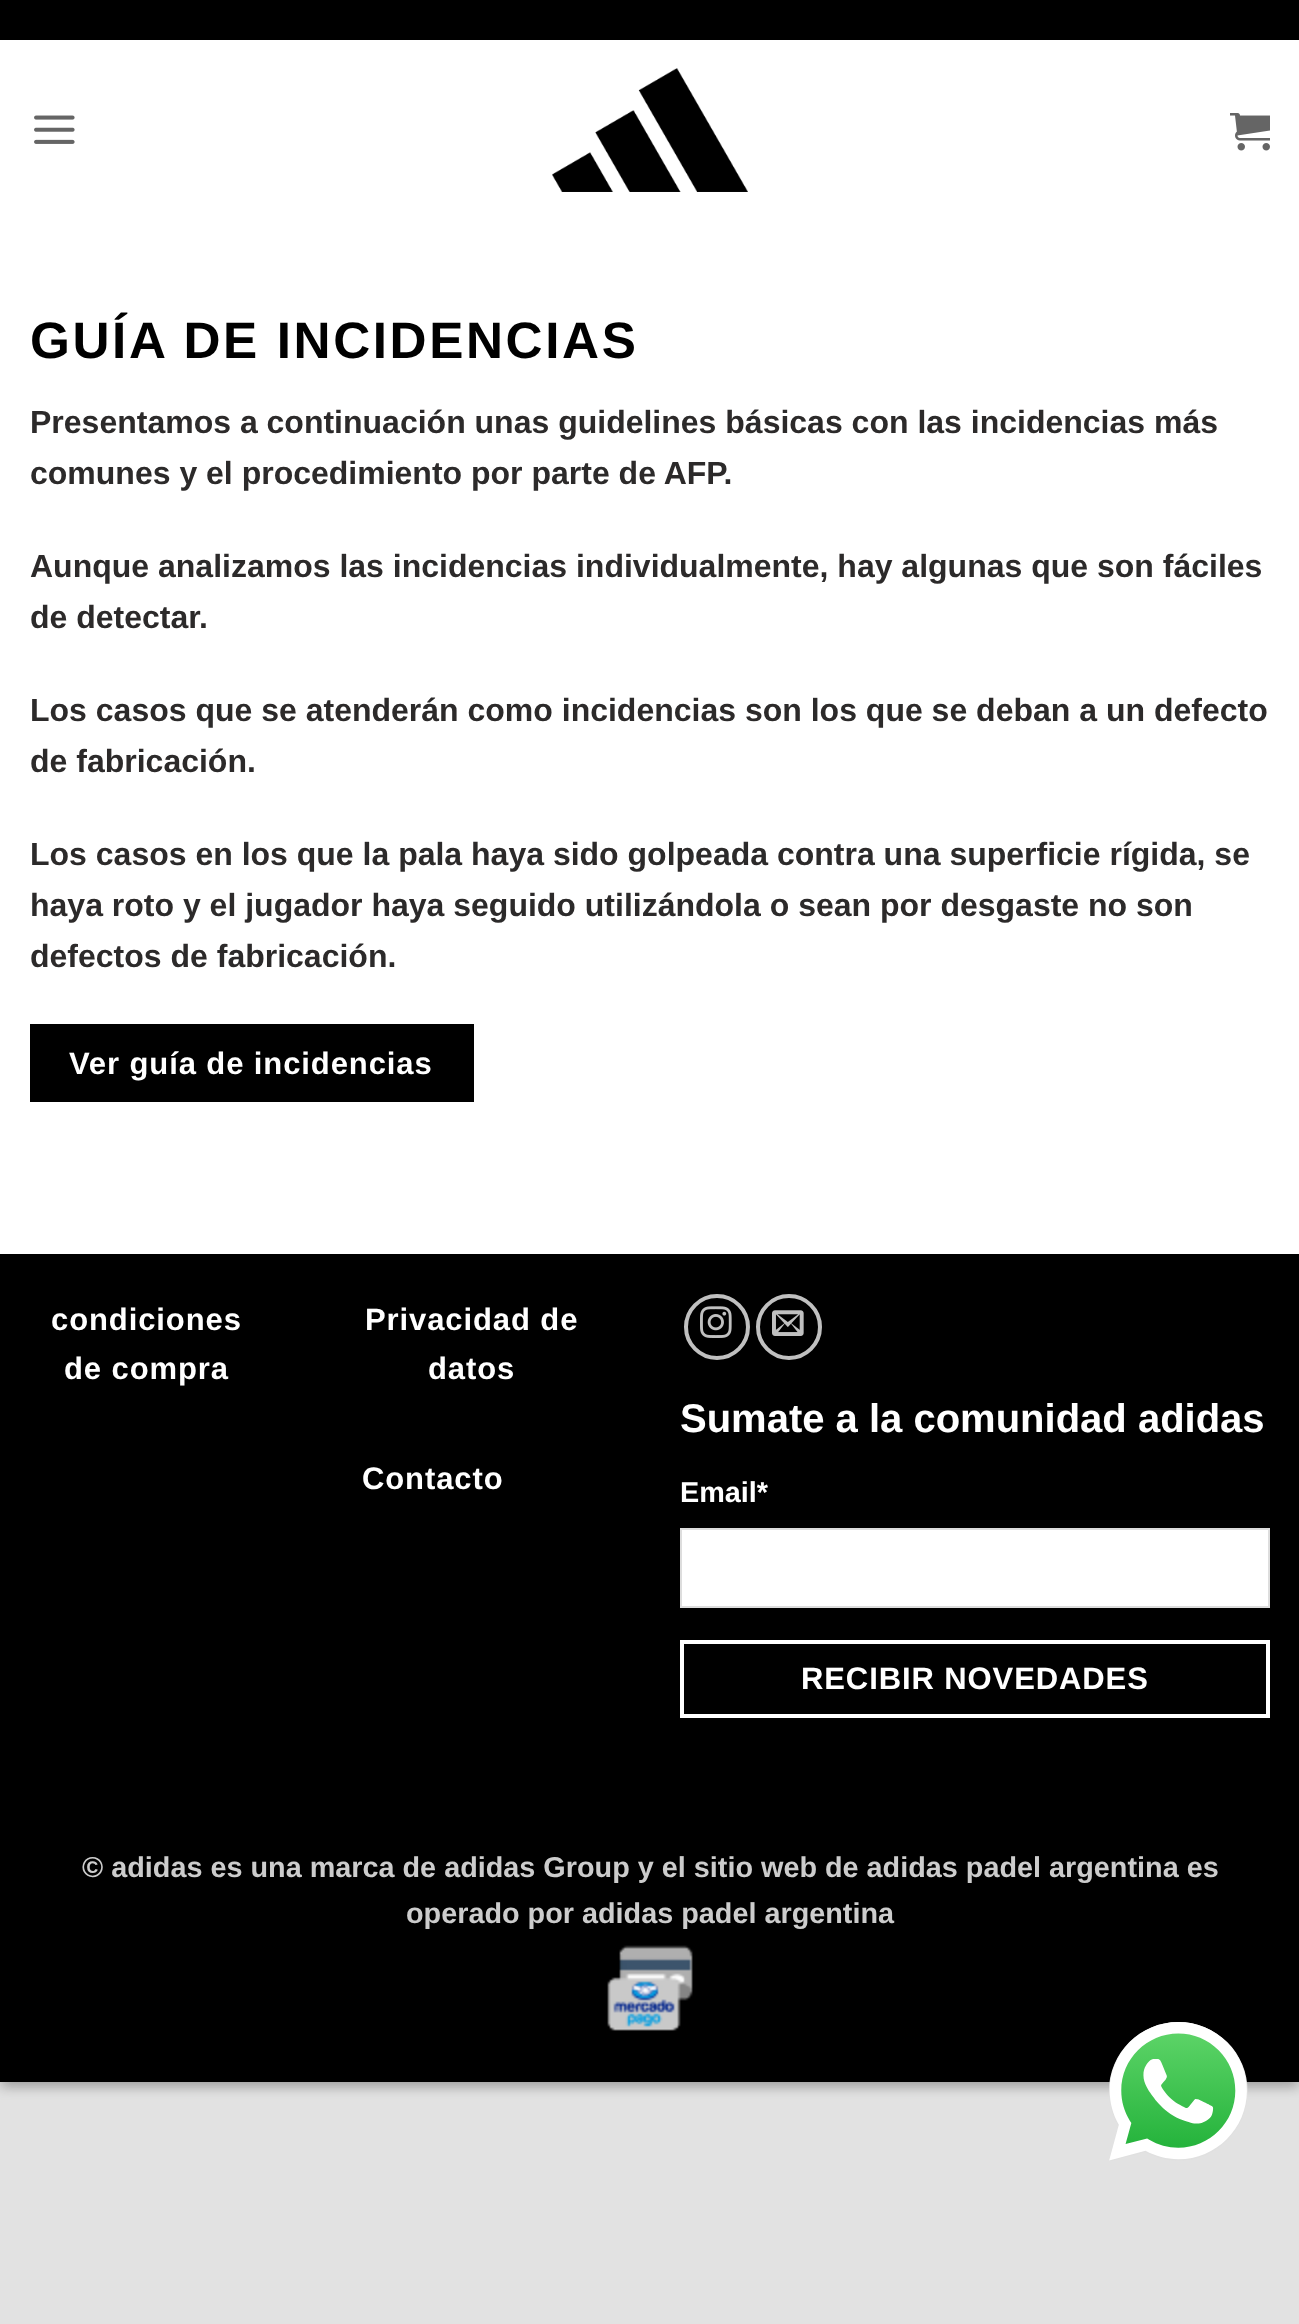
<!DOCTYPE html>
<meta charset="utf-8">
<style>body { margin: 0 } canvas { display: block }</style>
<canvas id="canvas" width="1299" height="2324"></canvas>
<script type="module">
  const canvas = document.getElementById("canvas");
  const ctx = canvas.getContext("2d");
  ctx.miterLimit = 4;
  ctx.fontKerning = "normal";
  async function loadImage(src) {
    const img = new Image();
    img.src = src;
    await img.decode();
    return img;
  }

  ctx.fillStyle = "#e2e2e2";
  ctx.fillRect(0, 0, 1299, 2324);
  ctx.fillStyle = "rgba(0, 0, 0, 0.23)";
  ctx.filter = "blur(6px)";
  ctx.beginPath();
  ctx.rect(0, 6, 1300, 2082);
  ctx.fill();
  ctx.filter = "none";
  ctx.fillStyle = "rgba(0, 0, 0, 0.16)";
  ctx.filter = "blur(6px)";
  ctx.beginPath();
  ctx.rect(8, 14, 1284, 2066);
  ctx.fill();
  ctx.filter = "none";
  ctx.fillStyle = "#ffffff";
  ctx.fillRect(0, 40, 1299, 1214);
  ctx.fillStyle = "#000000";
  ctx.fillRect(0, 0, 1299, 40);
  ctx.drawImage(await loadImage("img1.png"), 34, 115, 41, 29);
  ctx.drawImage(await loadImage("img2.png"), 552, 68, 196, 124);
  ctx.drawImage(await loadImage("img3.png"), 1230, 113, 40, 38);
  ctx.letterSpacing = "2.6px";
  ctx.font = "bold 51.25px Liberation Sans";
  ctx.fillText("GUÍA DE INCIDENCIAS", 30, 358);
  ctx.letterSpacing = "0px";
  ctx.font = "bold 32px Liberation Sans";
  ctx.fillStyle = "#2c2a2a";
  ctx.fillText("Presentamos a continuación unas guidelines básicas con las incidencias más", 30, 433);
  ctx.fillText("comunes y el procedimiento por parte de AFP.", 30, 484);
  ctx.fillText("Aunque analizamos las incidencias individualmente, hay algunas que son fáciles", 30, 577);
  ctx.fillText("de detectar.", 30, 628);
  ctx.fillText("Los casos que se atenderán como incidencias son los que se deban a un defecto", 30, 721);
  ctx.fillText("de fabricación.", 30, 772);
  ctx.fillText("Los casos en los que la pala haya sido golpeada contra una superficie rígida, se", 30, 865);
  ctx.fillText("haya roto y el jugador haya seguido utilizándola o sean por desgaste no son", 30, 916);
  ctx.fillText("defectos de fabricación.", 30, 967);
  ctx.fillStyle = "#000000";
  ctx.fillRect(30, 1024, 444, 78);
  ctx.letterSpacing = "0.9px";
  ctx.font = "bold 31px Liberation Sans";
  ctx.fillStyle = "#ffffff";
  ctx.fillText("Ver guía de incidencias", 69, 1074);
  ctx.fillStyle = "#000000";
  ctx.fillRect(0, 1254, 1299, 828);
  ctx.fillStyle = "#ffffff";
  ctx.fillText("condiciones", 51, 1330);
  ctx.fillText("de compra", 64, 1379);
  ctx.fillText("Privacidad de", 365, 1330);
  ctx.fillText("datos", 428, 1379);
  ctx.fillText("Contacto", 362, 1489);
  ctx.beginPath();
  ctx.arc(717, 1327, 31, 0, Math.PI * 2);
  ctx.strokeStyle = "#c0c0c0";
  ctx.lineWidth = 4;
  ctx.stroke();
  ctx.drawImage(await loadImage("img4.png"), 700, 1306, 32, 32);
  ctx.beginPath();
  ctx.arc(789, 1327, 31, 0, Math.PI * 2);
  ctx.stroke();
  ctx.drawImage(await loadImage("img5.png"), 772, 1310, 32, 26);
  ctx.letterSpacing = "0px";
  ctx.font = "bold 40px Liberation Sans";
  ctx.fillText("Sumate a la comunidad adidas", 680, 1432);
  ctx.font = "bold 28.8px Liberation Sans";
  ctx.fillText("Email*", 680, 1502);
  ctx.beginPath();
  ctx.rect(681, 1529, 588, 78);
  ctx.fill();
  ctx.strokeStyle = "#dddddd";
  ctx.lineWidth = 2;
  ctx.stroke();
  ctx.strokeStyle = "#ffffff";
  ctx.lineWidth = 4;
  ctx.strokeRect(682, 1642, 586, 74);
  ctx.letterSpacing = "0.9px";
  ctx.font = "bold 31px Liberation Sans";
  ctx.fillText("RECIBIR NOVEDADES", 801, 1689);
  ctx.letterSpacing = "0px";
  ctx.font = "bold 28.8px Liberation Sans";
  ctx.fillStyle = "#cccccc";
  ctx.fillText("© adidas es una marca de adidas Group y el sitio web de adidas padel argentina es", 82, 1877);
  ctx.fillText("operado por adidas padel argentina", 406, 1923);
  ctx.drawImage(await loadImage("img6.png"), 607, 1945, 86, 86);
  ctx.drawImage(await loadImage("img7.png"), 1109, 2022, 139, 139);
</script>
